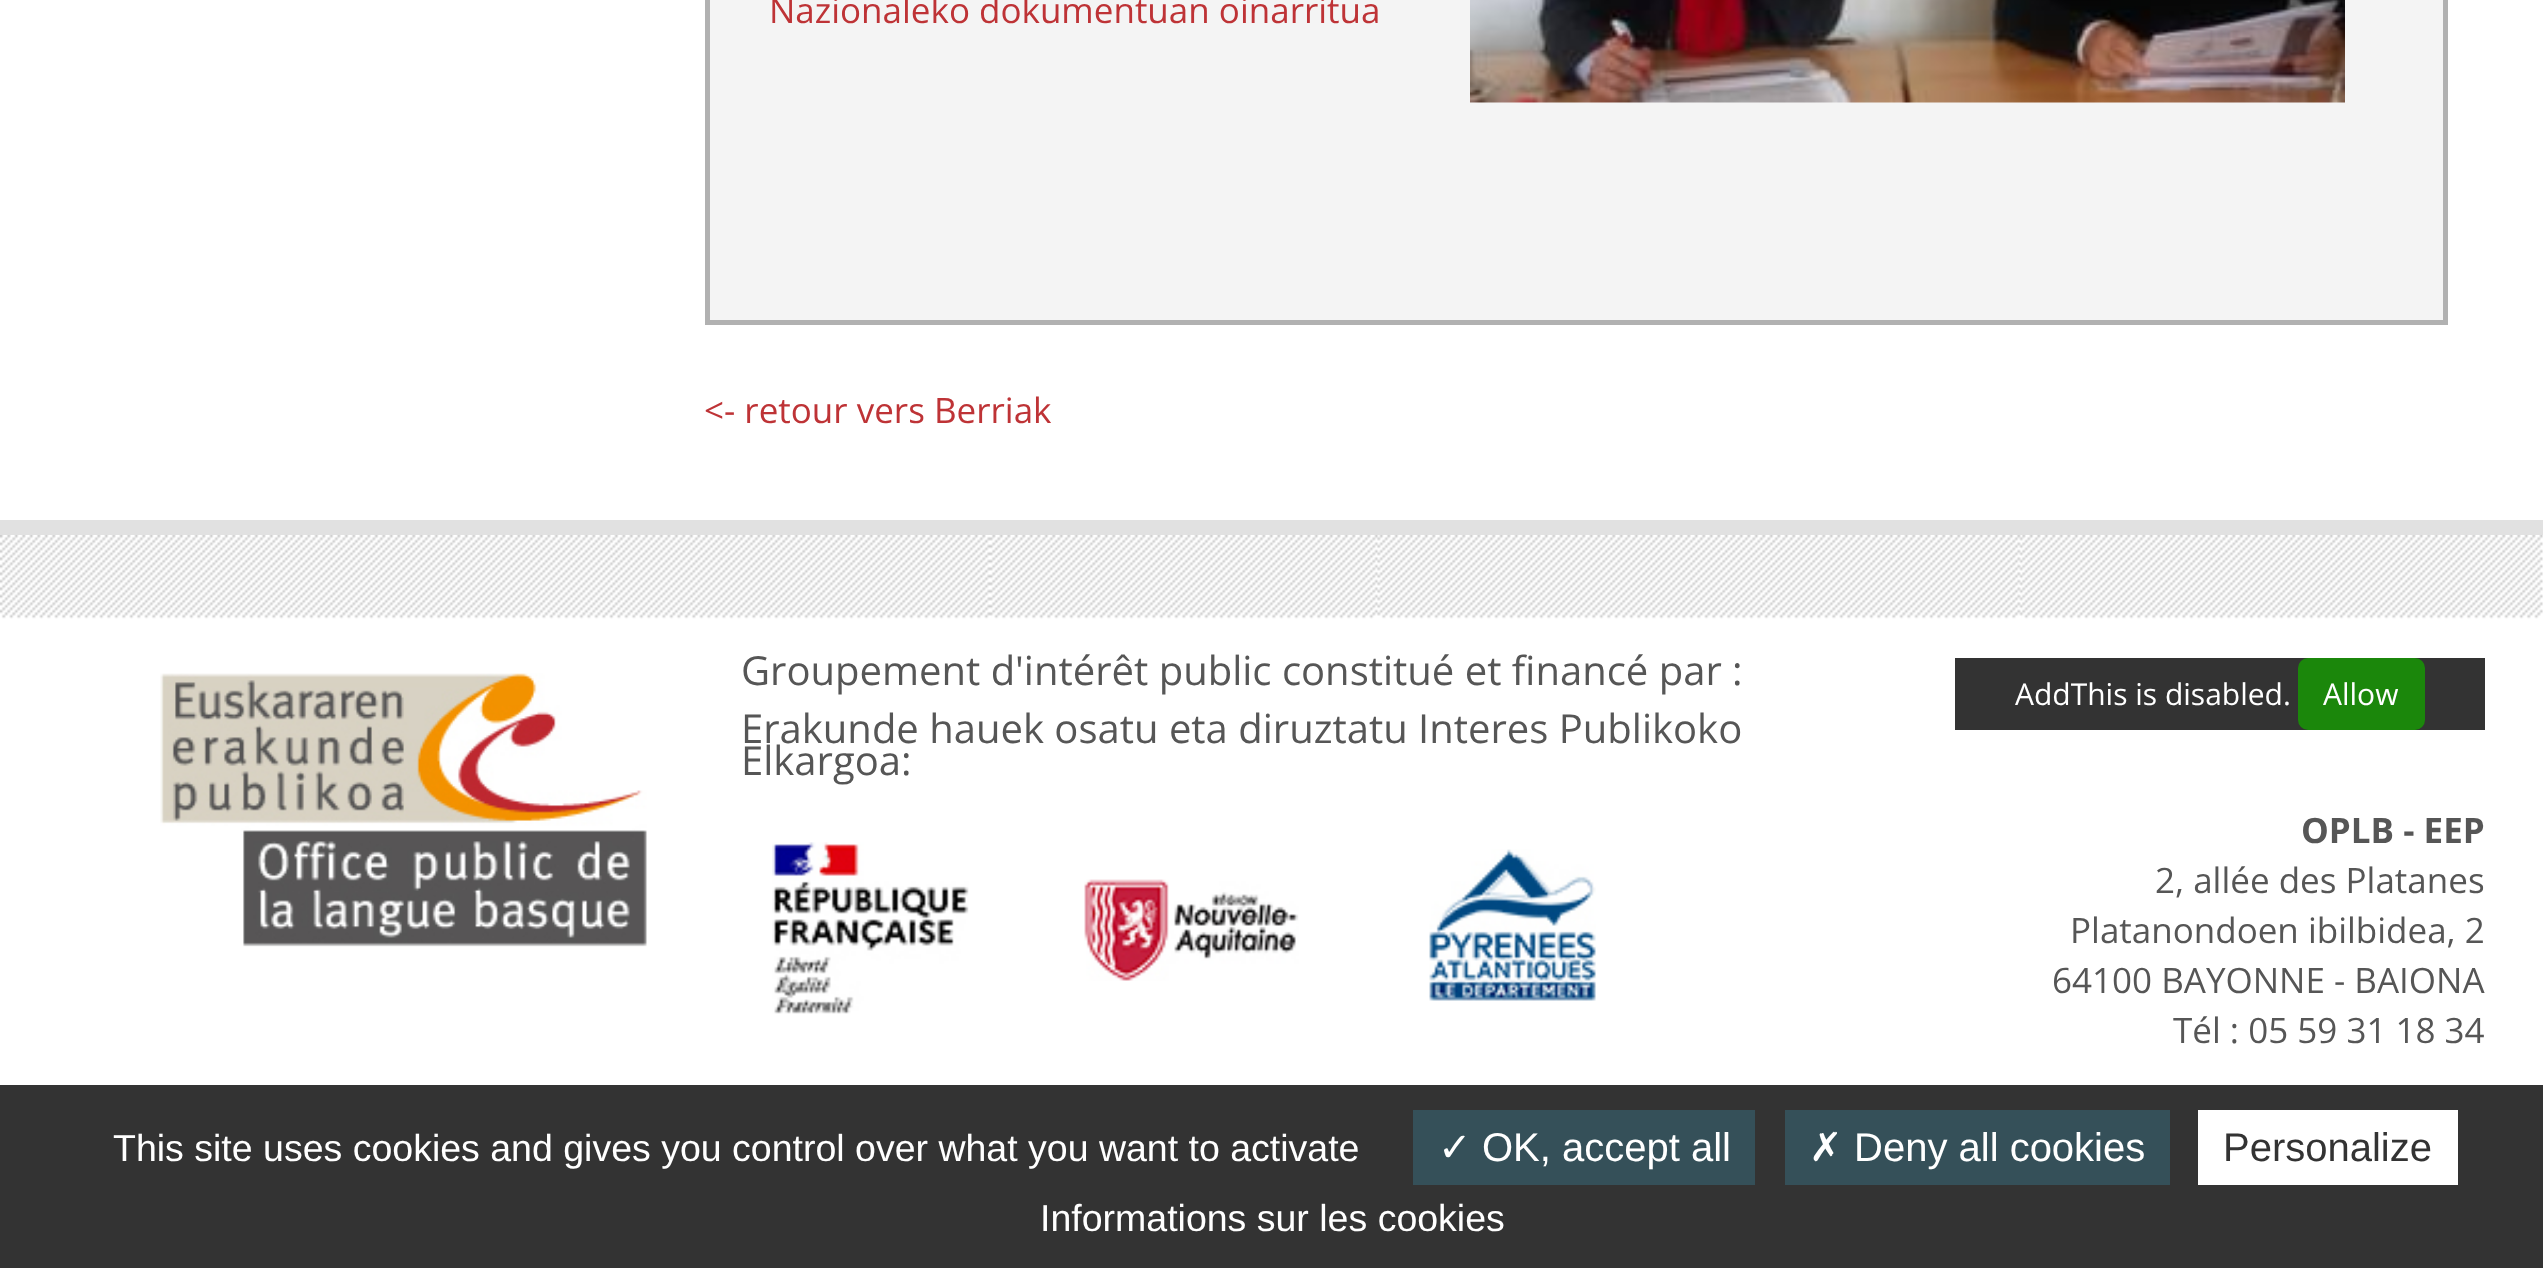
<!DOCTYPE html>
<meta charset="utf-8">
<style>body { margin: 0 } canvas { display: block }</style>
<canvas id="canvas" width="2543" height="1268"></canvas>
<script type="module">
  const canvas = document.getElementById("canvas");
  const ctx = canvas.getContext("2d");
  ctx.miterLimit = 4;
  ctx.fontKerning = "normal";
  async function loadImage(src) {
    const img = new Image();
    img.src = src;
    await img.decode();
    return img;
  }

  ctx.fillStyle = "#ffffff";
  ctx.fillRect(0, 0, 2543, 1268);
  ctx.fillStyle = "#f4f4f4";
  ctx.beginPath();
  ctx.rect(707.5, -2.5, 1738, 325);
  ctx.fill();
  ctx.strokeStyle = "#b1b1b1";
  ctx.lineWidth = 5;
  ctx.stroke();
  ctx.font = "35px Open Sans";
  ctx.fillStyle = "#be3336";
  ctx.fillText("Nazionaleko dokumentuan oinarritua", 769, 23);
  ctx.drawImage(await loadImage("img1.png"), 1470, 0, 875, 103);
  ctx.fillText("<- retour vers Berriak", 704, 423);
  ctx.drawImage(await loadImage("img2.png"), 0, 535, 2543, 84);
  ctx.fillStyle = "#e1e1e1";
  ctx.fillRect(0, 520, 2543, 15);
  ctx.drawImage(await loadImage("img3.png"), 160, 673, 487, 274);
  ctx.font = "40px Open Sans";
  ctx.fillStyle = "#565656";
  ctx.fillText("Groupement d'intérêt public constitué et financé par :", 741, 685);
  ctx.fillText("Erakunde hauek osatu eta diruztatu Interes Publikoko", 741, 743);
  ctx.fillText("Elkargoa:", 741, 775);
  ctx.drawImage(await loadImage("img4.png"), 772, 842, 197, 172);
  ctx.drawImage(await loadImage("img5.png"), 1084, 879, 215, 102);
  ctx.drawImage(await loadImage("img6.png"), 1429, 849, 167, 152);
  ctx.fillStyle = "#333333";
  ctx.fillRect(1955, 658, 530, 72);
  ctx.font = "30px Open Sans";
  ctx.fillStyle = "#ffffff";
  ctx.fillText("AddThis is disabled.", 2015, 705);
  ctx.fillStyle = "#1b870b";
  ctx.beginPath();
  ctx.roundRect(2298, 658, 127, 72, 10);
  ctx.fill();
  ctx.fillStyle = "#ffffff";
  ctx.fillText("Allow", 2323, 705);
  ctx.font = "bold 35px Open Sans";
  ctx.fillStyle = "#565656";
  ctx.fillText("OPLB - EEP", 2301, 843);
  ctx.font = "35px Open Sans";
  ctx.fillText("2, allée des Platanes", 2155, 893);
  ctx.fillText("Platanondoen ibilbidea, 2", 2070, 943);
  ctx.fillText("64100 BAYONNE - BAIONA", 2052, 993);
  ctx.fillText("Tél : 05 59 31 18 34", 2173, 1043);
  ctx.fillStyle = "#333333";
  ctx.fillRect(0, 1085, 2543, 183);
  ctx.font = "37.5px Liberation Sans";
  ctx.fillStyle = "#ffffff";
  ctx.fillText("This site uses cookies and gives you control over what you want to activate", 113, 1161);
  ctx.fillStyle = "#355059";
  ctx.fillRect(1413, 1110, 342, 75);
  ctx.font = "40px DejaVu Sans";
  ctx.fillStyle = "#ffffff";
  ctx.fillText("✓", 1438, 1161);
  ctx.font = "40px Liberation Sans";
  ctx.fillText("OK, accept all", 1482, 1161);
  ctx.fillStyle = "#355059";
  ctx.fillRect(1785, 1110, 385, 75);
  ctx.font = "40px DejaVu Sans";
  ctx.fillStyle = "#ffffff";
  ctx.fillText("✗", 1809, 1161);
  ctx.font = "40px Liberation Sans";
  ctx.fillText("Deny all cookies", 1854, 1161);
  ctx.fillRect(2198, 1110, 260, 75);
  ctx.fillStyle = "#333333";
  ctx.fillText("Personalize", 2223, 1161);
  ctx.font = "37.5px Liberation Sans";
  ctx.fillStyle = "#ffffff";
  ctx.fillText("Informations sur les cookies", 1040, 1231);
</script>
